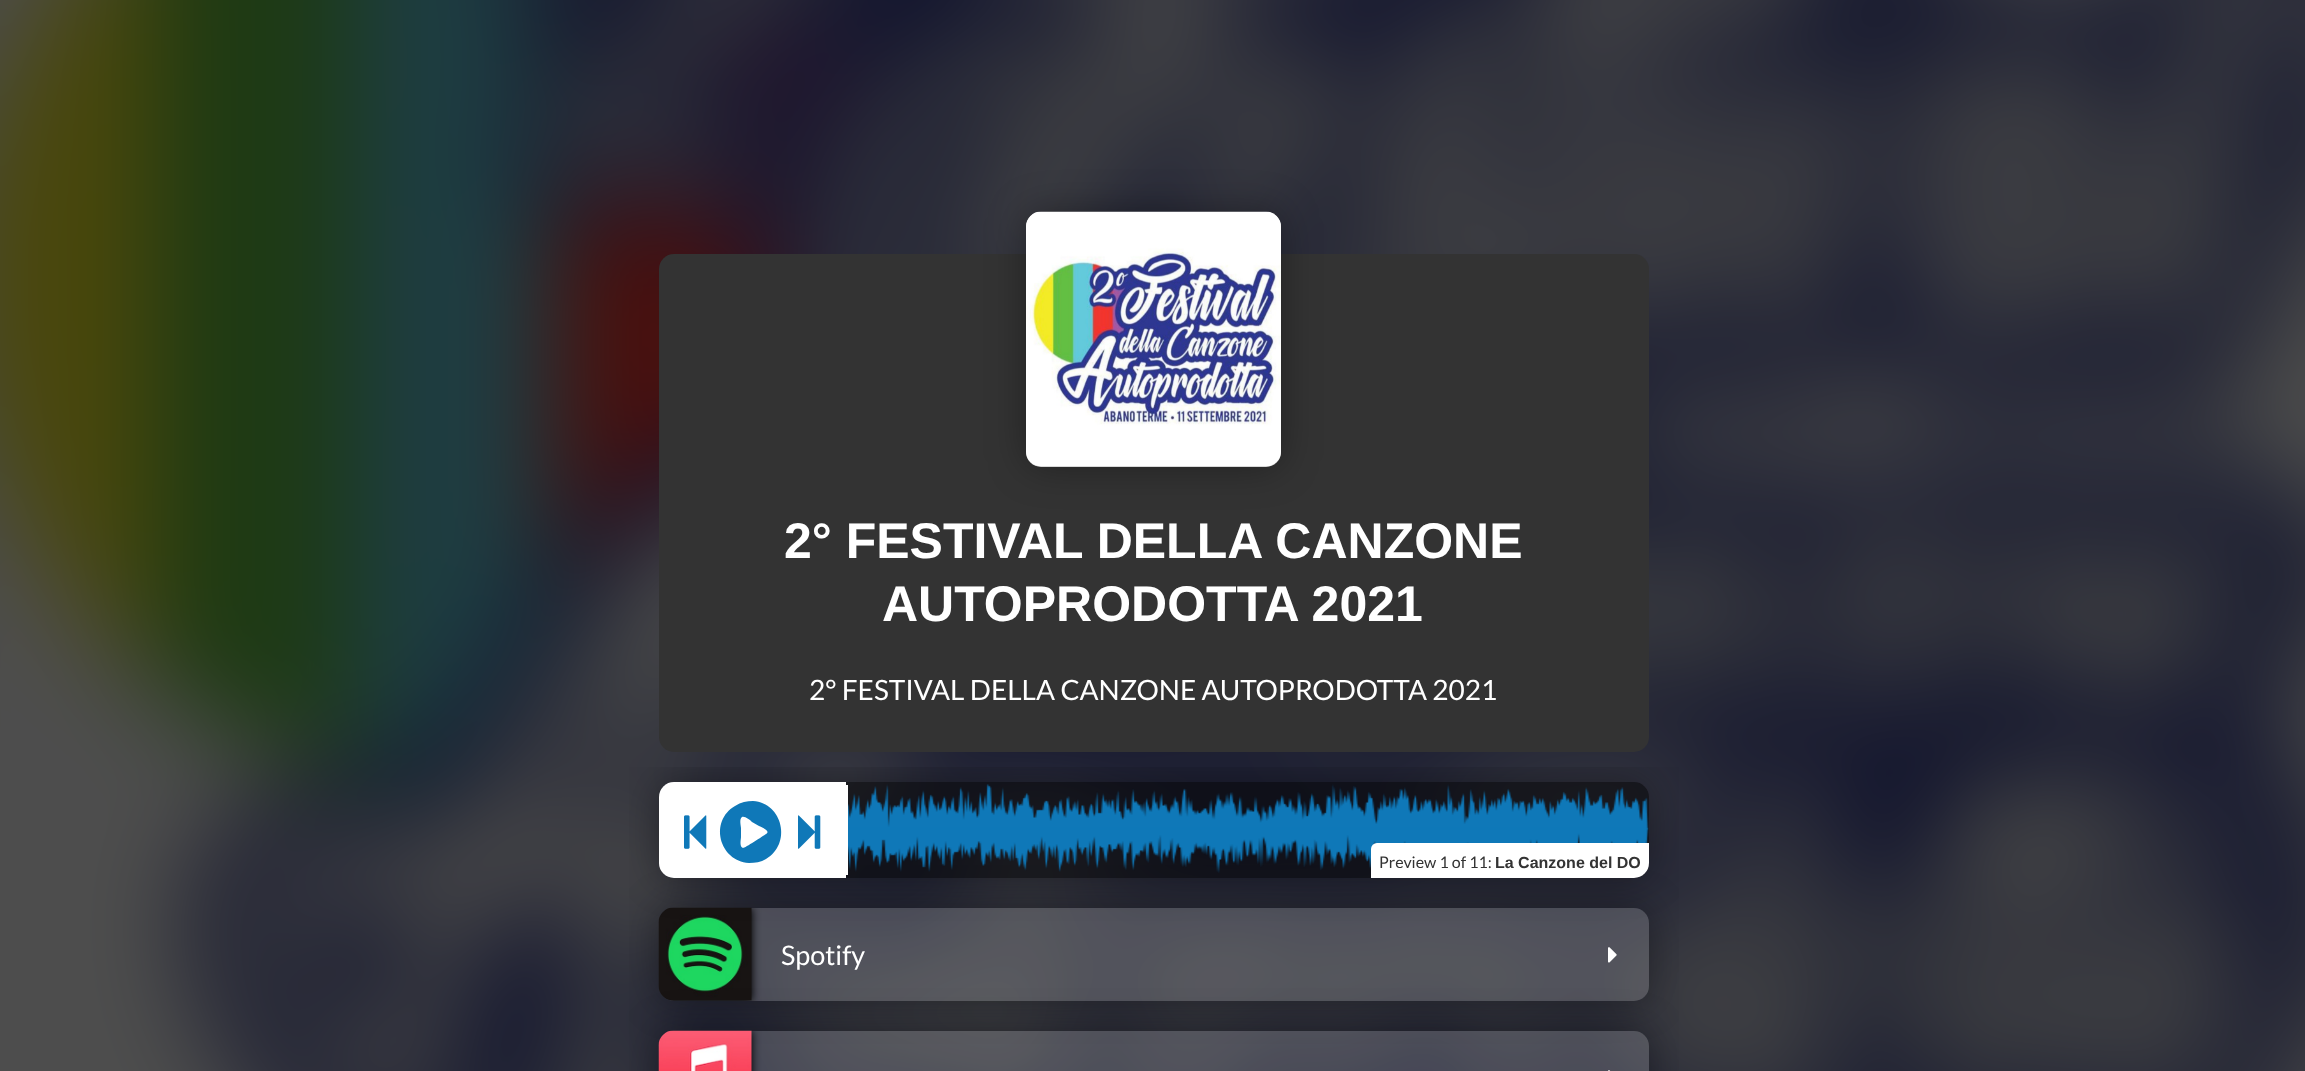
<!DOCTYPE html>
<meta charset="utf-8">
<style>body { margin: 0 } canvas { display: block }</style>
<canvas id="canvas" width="2305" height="1071"></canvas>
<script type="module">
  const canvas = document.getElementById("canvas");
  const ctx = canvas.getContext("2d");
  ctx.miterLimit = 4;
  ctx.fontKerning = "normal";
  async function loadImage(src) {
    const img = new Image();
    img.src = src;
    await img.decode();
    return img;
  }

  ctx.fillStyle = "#000000";
  ctx.fillRect(0, 0, 2305, 1071);
  ctx.drawImage(await loadImage("img1.png"), 0, 0, 2305, 1071);
  ctx.fillStyle = "#333333";
  ctx.beginPath();
  ctx.roundRect(659, 254, 990, 498, 15);
  ctx.fill();
  ctx.fillStyle = "rgba(0, 0, 0, 0.35)";
  ctx.filter = "blur(19px)";
  ctx.beginPath();
  ctx.roundRect(1026, 212, 255, 255, 15);
  ctx.fill();
  ctx.filter = "none";
  ctx.fillStyle = "#cccccc";
  ctx.beginPath();
  ctx.roundRect(1026, 212, 255, 255, 15);
  ctx.fill();
  ctx.drawImage(await loadImage("img2.png"), 1026, 211, 255, 256);
  ctx.font = "bold 50px Liberation Sans";
  ctx.fillStyle = "#ffffff";
  ctx.fillText("2° FESTIVAL DELLA CANZONE", 784, 558);
  ctx.fillText("AUTOPRODOTTA 2021", 882, 621);
  ctx.font = "28px Lato";
  ctx.fillText("2° FESTIVAL DELLA CANZONE AUTOPRODOTTA 2021", 809, 700);
  ctx.save();
  ctx.beginPath();
  ctx.rect(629, 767, 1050, 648);
  ctx.clip();
  ctx.beginPath();
  ctx.moveTo(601, 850);
  ctx.lineTo(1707, 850);
  ctx.lineTo(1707, 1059);
  ctx.lineTo(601, 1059);
  ctx.closePath();
  ctx.moveTo(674, 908);
  ctx.lineTo(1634, 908);
  ctx.bezierCurveTo(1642.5, 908, 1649, 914.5, 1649, 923);
  ctx.lineTo(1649, 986);
  ctx.bezierCurveTo(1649, 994.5, 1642.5, 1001, 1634, 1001);
  ctx.lineTo(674, 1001);
  ctx.bezierCurveTo(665.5, 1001, 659, 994.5, 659, 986);
  ctx.lineTo(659, 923);
  ctx.bezierCurveTo(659, 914.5, 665.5, 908, 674, 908);
  ctx.closePath();
  ctx.clip("evenodd");
  ctx.fillStyle = "rgba(0, 0, 0, 0.35)";
  ctx.filter = "blur(19px)";
  ctx.beginPath();
  ctx.roundRect(659, 908, 990, 93, 15);
  ctx.fill();
  ctx.filter = "none";
  ctx.restore();
  ctx.fillStyle = "rgba(255, 255, 255, 0.17)";
  ctx.beginPath();
  ctx.roundRect(659, 908, 990, 93, 15);
  ctx.fill();
  ctx.save();
  ctx.beginPath();
  ctx.roundRect(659, 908, 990, 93, 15);
  ctx.clip();
  ctx.fillStyle = "#000000";
  ctx.filter = "blur(4px)";
  ctx.beginPath();
  ctx.rect(659, 908, 93, 93);
  ctx.fill();
  ctx.filter = "none";
  ctx.restore();
  ctx.drawImage(await loadImage("img6.png"), 658, 907, 94, 94);
  ctx.save();
  ctx.beginPath();
  ctx.rect(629, 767, 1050, 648);
  ctx.clip();
  ctx.beginPath();
  ctx.moveTo(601, 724);
  ctx.lineTo(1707, 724);
  ctx.lineTo(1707, 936);
  ctx.lineTo(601, 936);
  ctx.closePath();
  ctx.moveTo(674, 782);
  ctx.lineTo(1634, 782);
  ctx.bezierCurveTo(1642.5, 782, 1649, 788.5, 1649, 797);
  ctx.lineTo(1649, 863);
  ctx.bezierCurveTo(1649, 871.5, 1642.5, 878, 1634, 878);
  ctx.lineTo(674, 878);
  ctx.bezierCurveTo(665.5, 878, 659, 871.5, 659, 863);
  ctx.lineTo(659, 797);
  ctx.bezierCurveTo(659, 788.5, 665.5, 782, 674, 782);
  ctx.closePath();
  ctx.clip("evenodd");
  ctx.fillStyle = "rgba(0, 0, 0, 0.35)";
  ctx.filter = "blur(19px)";
  ctx.beginPath();
  ctx.roundRect(659, 782, 990, 96, 15);
  ctx.fill();
  ctx.filter = "none";
  ctx.restore();
  ctx.fillStyle = "#ffffff";
  ctx.beginPath();
  ctx.roundRect(659, 782, 187, 96, [15, 0, 0, 15]);
  ctx.fill();
  ctx.drawImage(await loadImage("img3.png"), 684, 815, 23, 34);
  ctx.fillStyle = "#0f78b8";
  ctx.beginPath();
  ctx.moveTo(735, 806);
  ctx.bezierCurveTo(741, 802, 747, 801, 753, 801);
  ctx.bezierCurveTo(783, 803, 792, 844, 766, 859);
  ctx.bezierCurveTo(761, 862, 755, 863, 749, 863);
  ctx.bezierCurveTo(719, 861, 709, 821, 735, 806);
  ctx.closePath();
  ctx.moveTo(766, 834);
  ctx.bezierCurveTo(772, 831, 759, 826, 759, 826);
  ctx.lineTo(752, 822);
  ctx.bezierCurveTo(750, 820, 745, 816, 742, 817);
  ctx.bezierCurveTo(739, 819, 741, 826, 741, 828);
  ctx.lineTo(741, 837);
  ctx.bezierCurveTo(741, 839, 739, 847, 743, 848);
  ctx.bezierCurveTo(745, 848, 763, 836, 766, 834);
  ctx.closePath();
  ctx.fill();
  ctx.drawImage(await loadImage("img4.png"), 798, 815, 23, 34);
  ctx.fillStyle = "rgba(0, 0, 0, 0.5)";
  ctx.beginPath();
  ctx.roundRect(846, 782, 803, 96, [0, 15, 15, 0]);
  ctx.fill();
  ctx.fillStyle = "#ffffff";
  ctx.fillRect(846, 785, 2, 90);
  ctx.drawImage(await loadImage("img5.png"), 848, 784, 801, 89);
  ctx.beginPath();
  ctx.roundRect(1371, 843, 278, 35, [6, 0, 15, 0]);
  ctx.fill();
  ctx.font = "16px Lato";
  ctx.fillStyle = "#333333";
  ctx.fillText("Preview 1 of 11:", 1379, 868);
  ctx.font = "bold 16px Liberation Sans";
  ctx.fillText("La Canzone del DO", 1495, 868);
  ctx.font = "27px Lato";
  ctx.fillStyle = "#ffffff";
  ctx.fillText("Spotify", 781, 965);
  ctx.drawImage(await loadImage("img7.png"), 1608, 947, 9, 16);
  ctx.save();
  ctx.beginPath();
  ctx.rect(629, 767, 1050, 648);
  ctx.clip();
  ctx.beginPath();
  ctx.moveTo(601, 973);
  ctx.lineTo(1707, 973);
  ctx.lineTo(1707, 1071);
  ctx.lineTo(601, 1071);
  ctx.closePath();
  ctx.moveTo(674, 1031);
  ctx.lineTo(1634, 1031);
  ctx.bezierCurveTo(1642.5, 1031, 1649, 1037.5, 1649, 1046);
  ctx.lineTo(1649, 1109);
  ctx.bezierCurveTo(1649, 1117.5, 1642.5, 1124, 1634, 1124);
  ctx.lineTo(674, 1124);
  ctx.bezierCurveTo(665.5, 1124, 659, 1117.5, 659, 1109);
  ctx.lineTo(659, 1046);
  ctx.bezierCurveTo(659, 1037.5, 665.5, 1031, 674, 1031);
  ctx.closePath();
  ctx.clip("evenodd");
  ctx.fillStyle = "rgba(0, 0, 0, 0.35)";
  ctx.filter = "blur(19px)";
  ctx.beginPath();
  ctx.roundRect(659, 1031, 990, 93, 15);
  ctx.fill();
  ctx.filter = "none";
  ctx.restore();
  ctx.fillStyle = "rgba(255, 255, 255, 0.17)";
  ctx.beginPath();
  ctx.roundRect(659, 1031, 990, 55, 15);
  ctx.fill();
  ctx.save();
  ctx.beginPath();
  ctx.roundRect(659, 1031, 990, 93, 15);
  ctx.clip();
  ctx.fillStyle = "#000000";
  ctx.filter = "blur(4px)";
  ctx.beginPath();
  ctx.rect(659, 1031, 93, 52);
  ctx.fill();
  ctx.filter = "none";
  ctx.restore();
  ctx.drawImage(await loadImage("img8.png"), 658, 1030, 94, 41);
  ctx.drawImage(await loadImage("img9.png"), 1608, 1070, 3, 1);
</script>
